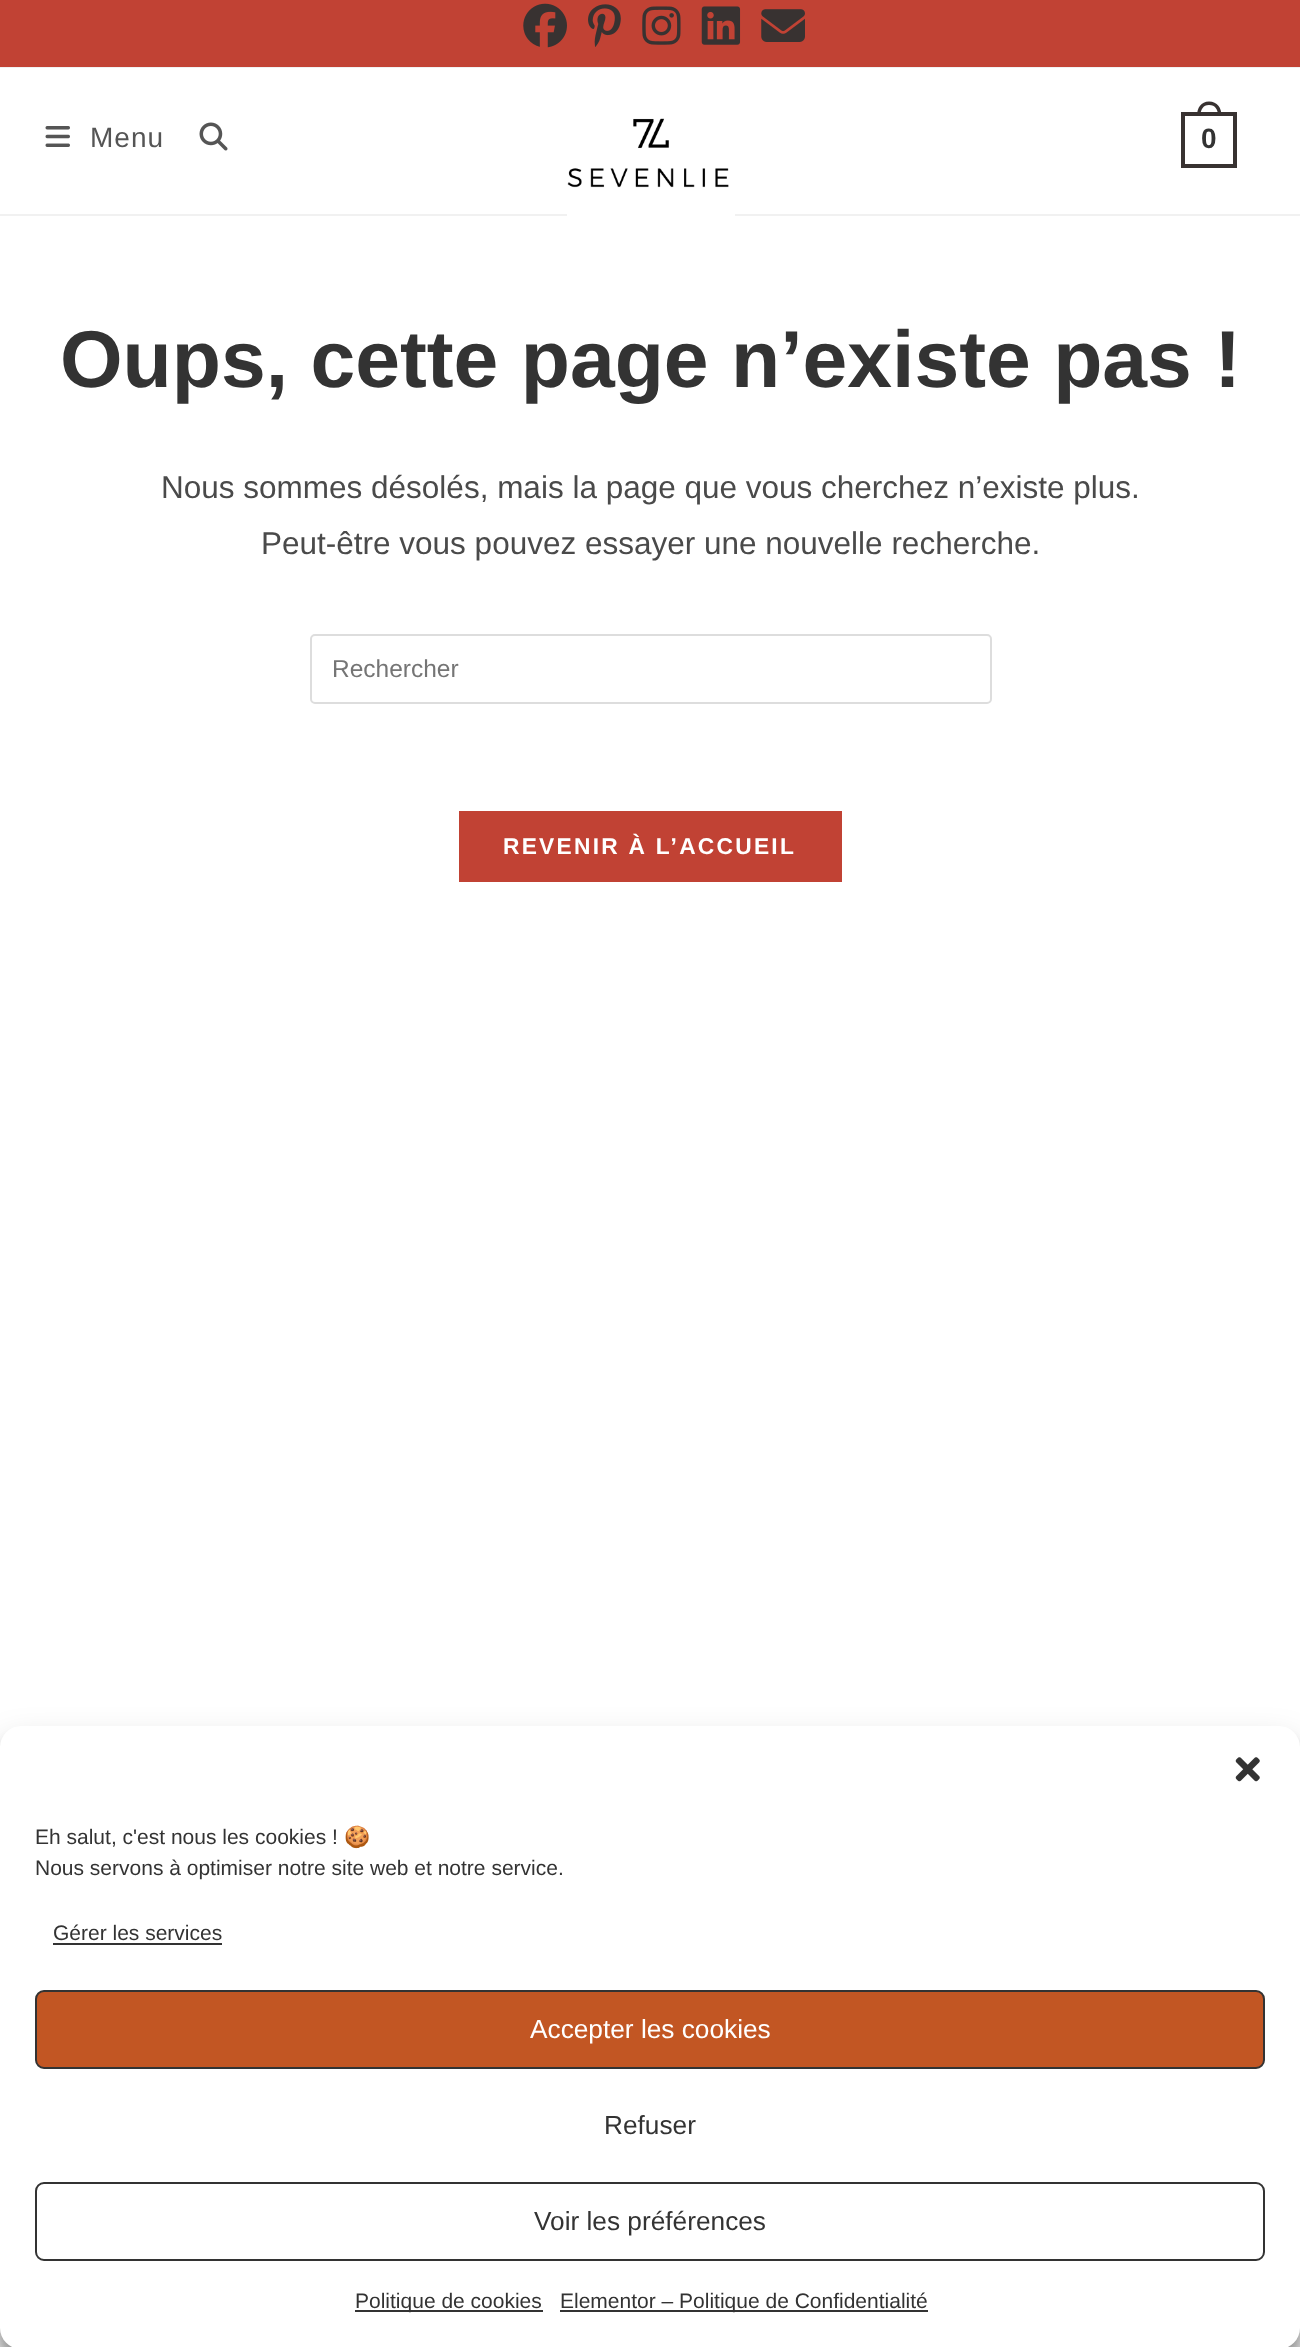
<!DOCTYPE html>
<meta charset="utf-8">
<style>body { margin: 0 } canvas { display: block }</style>
<canvas id="canvas" width="1300" height="2347"></canvas>
<script type="module">
  const canvas = document.getElementById("canvas");
  const ctx = canvas.getContext("2d");
  ctx.miterLimit = 4;
  ctx.fontKerning = "normal";
  async function loadImage(src) {
    const img = new Image();
    img.src = src;
    await img.decode();
    return img;
  }

  ctx.fillStyle = "#ffffff";
  ctx.fillRect(0, 0, 1300, 2347);
  ctx.fillStyle = "#c14234";
  ctx.fillRect(0, 0, 1300, 67);
  ctx.fillStyle = "#f1f1f1";
  ctx.fillRect(0, 67, 1300, 1);
  ctx.drawImage(await loadImage("img1.png"), 523, 3, 44, 45);
  ctx.drawImage(await loadImage("img2.png"), 588, 4, 33, 43);
  ctx.drawImage(await loadImage("img3.png"), 642, 6, 39, 39);
  ctx.drawImage(await loadImage("img4.png"), 701, 6, 40, 39);
  ctx.drawImage(await loadImage("img5.png"), 761, 9, 44, 33);
  ctx.fillRect(0, 214, 1300, 2);
  ctx.drawImage(await loadImage("img6.png"), 45, 126, 25, 21);
  ctx.letterSpacing = "1px";
  ctx.font = "28px Liberation Sans";
  ctx.fillStyle = "#555555";
  ctx.fillText("Menu", 90, 147);
  ctx.drawImage(await loadImage("img7.png"), 199, 122, 29, 29);
  ctx.drawImage(await loadImage("img8.png"), 567, 118, 168, 98);
  ctx.strokeStyle = "#383231";
  ctx.lineWidth = 4;
  ctx.strokeRect(1183, 114, 52, 52);
  ctx.fillStyle = "#383231";
  ctx.beginPath();
  ctx.moveTo(1209, 101.5);
  ctx.bezierCurveTo(1217.5, 101.5, 1221.5, 108, 1221.5, 115.5);
  ctx.lineTo(1197, 115.5);
  ctx.bezierCurveTo(1197, 108, 1201, 101.5, 1209, 101.5);
  ctx.closePath();
  ctx.moveTo(1209, 105);
  ctx.bezierCurveTo(1215.5, 105, 1218, 110, 1218, 115.5);
  ctx.lineTo(1200.5, 115.5);
  ctx.bezierCurveTo(1200.5, 110, 1203, 105, 1209, 105);
  ctx.closePath();
  ctx.fill("evenodd");
  ctx.font = "bold 28px Liberation Sans";
  ctx.fillStyle = "#333333";
  ctx.fillText("0", 1201, 148);
  ctx.letterSpacing = "0px";
  ctx.font = "bold 80.5px Liberation Sans";
  ctx.fillText("Oups, cette page n’existe pas !", 60, 387);
  ctx.font = "31.5px Liberation Sans";
  ctx.fillStyle = "#4a4a4a";
  ctx.fillText("Nous sommes désolés, mais la page que vous cherchez n’existe plus.", 161, 498);
  ctx.fillText("Peut-être vous pouvez essayer une nouvelle recherche.", 261, 554);
  ctx.beginPath();
  ctx.roundRect(311, 635, 680, 68, 4);
  ctx.strokeStyle = "#dddddd";
  ctx.lineWidth = 2;
  ctx.stroke();
  ctx.font = "24.5px Liberation Sans";
  ctx.fillStyle = "#757575";
  ctx.fillText("Rechercher", 332, 677);
  ctx.fillStyle = "#c14234";
  ctx.fillRect(459, 811, 383, 71);
  ctx.letterSpacing = "2.25px";
  ctx.font = "bold 22.75px Liberation Sans";
  ctx.fillStyle = "#ffffff";
  ctx.fillText("REVENIR À L’ACCUEIL", 503, 854);
  ctx.fillStyle = "#e8e8e8";
  ctx.fillRect(0, 2328, 1300, 19);
  ctx.fillStyle = "rgba(0, 0, 0, 0.23)";
  ctx.filter = "blur(5px)";
  ctx.beginPath();
  ctx.roundRect(0, 1736, 1300, 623, 21);
  ctx.fill();
  ctx.filter = "none";
  ctx.fillStyle = "rgba(0, 0, 0, 0.19)";
  ctx.filter = "blur(17.5px)";
  ctx.beginPath();
  ctx.roundRect(0, 1743, 1300, 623, 21);
  ctx.fill();
  ctx.filter = "none";
  ctx.fillStyle = "#ffffff";
  ctx.beginPath();
  ctx.roundRect(0, 1726, 1300, 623, 21);
  ctx.fill();
  ctx.drawImage(await loadImage("img9.png"), 1235, 1757, 25, 25);
  ctx.letterSpacing = "0px";
  ctx.font = "21px Liberation Sans";
  ctx.fillStyle = "#333333";
  ctx.fillText("Eh salut, c'est nous les cookies !", 35, 1844);
  ctx.font = "21px Noto Color Emoji";
  ctx.fillText("🍪", 344, 1844);
  ctx.font = "21px Liberation Sans";
  ctx.fillText("Nous servons à optimiser notre site web et notre service.", 35, 1875);
  ctx.fillText("Gérer les services", 53, 1940);
  ctx.fillRect(53, 1943, 169, 2);
  ctx.fillStyle = "#c25623";
  ctx.beginPath();
  ctx.roundRect(36, 1991, 1228, 77, 8);
  ctx.fill();
  ctx.strokeStyle = "#333333";
  ctx.stroke();
  ctx.font = "26.25px Liberation Sans";
  ctx.fillStyle = "#ffffff";
  ctx.fillText("Accepter les cookies", 530, 2038);
  ctx.fillStyle = "#333333";
  ctx.fillText("Refuser", 604, 2134);
  ctx.beginPath();
  ctx.roundRect(36, 2183, 1228, 77, 8);
  ctx.stroke();
  ctx.fillText("Voir les préférences", 534, 2230);
  ctx.fillRect(355, 2310, 188, 2);
  ctx.font = "21px Liberation Sans";
  ctx.fillText("Politique de cookies", 355, 2308);
  ctx.fillRect(560, 2310, 368, 2);
  ctx.fillText("Elementor – Politique de Confidentialité", 560, 2308);
</script>
